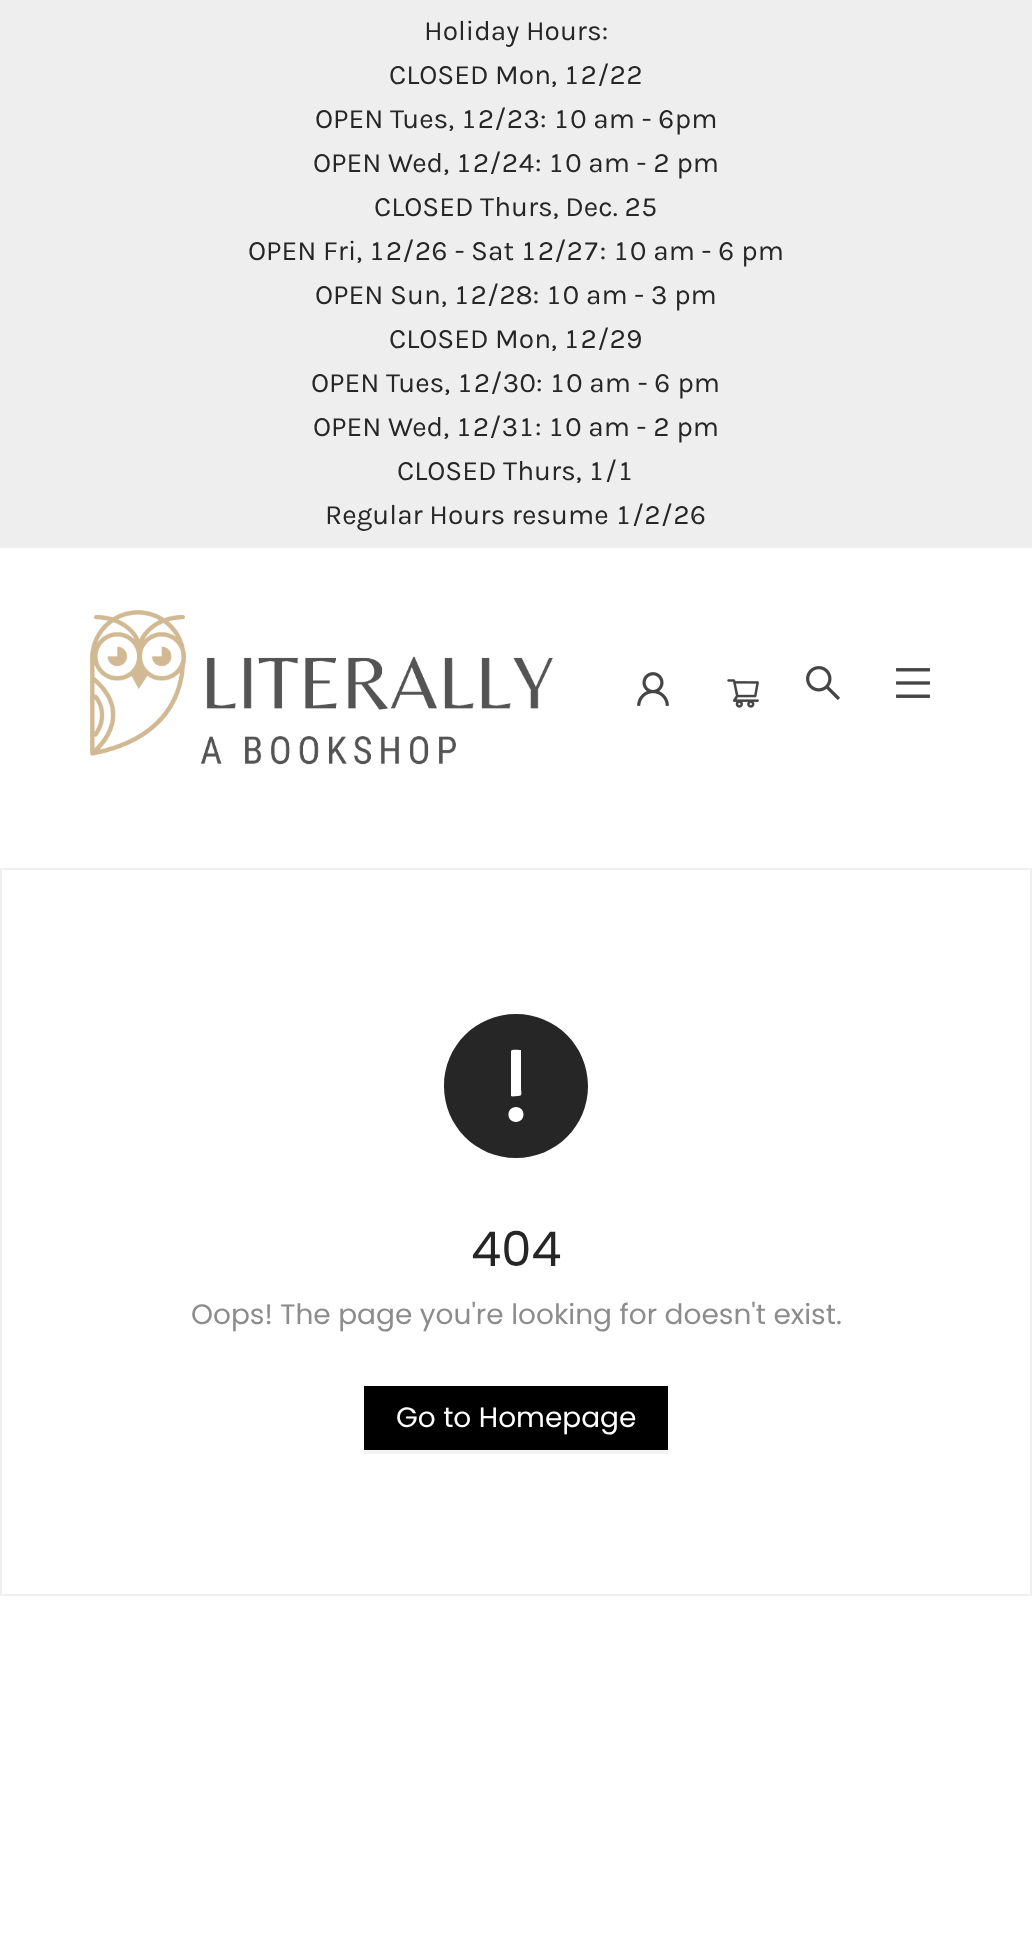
<!DOCTYPE html>
<meta charset="utf-8">
<style>body { margin: 0 } canvas { display: block }</style>
<canvas id="canvas" width="1032" height="1948"></canvas>
<script type="module">
  const canvas = document.getElementById("canvas");
  const ctx = canvas.getContext("2d");
  ctx.miterLimit = 4;
  ctx.fontKerning = "normal";
  async function loadImage(src) {
    const img = new Image();
    img.src = src;
    await img.decode();
    return img;
  }

  ctx.fillStyle = "#ffffff";
  ctx.fillRect(0, 0, 1032, 1948);
  ctx.fillStyle = "#eeeeee";
  ctx.fillRect(0, 0, 1032, 548);
  ctx.font = "28px Karla";
  ctx.fillStyle = "#262626";
  ctx.fillText("Holiday Hours:", 424, 40);
  ctx.font = "28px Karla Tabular";
  ctx.fillText("CLOSED Mon, 12/22", 389, 84);
  ctx.fillText("OPEN Tues, 12/23: 10 am - 6pm", 315, 128);
  ctx.fillText("OPEN Wed, 12/24: 10 am - 2 pm", 313, 172);
  ctx.fillText("CLOSED Thurs, Dec. 25", 374, 216);
  ctx.fillText("OPEN Fri, 12/26 - Sat 12/27: 10 am - 6 pm", 248, 260);
  ctx.fillText("OPEN Sun, 12/28: 10 am - 3 pm", 315, 304);
  ctx.fillText("CLOSED Mon, 12/29", 389, 348);
  ctx.fillText("OPEN Tues, 12/30: 10 am - 6 pm", 311, 392);
  ctx.fillText("OPEN Wed, 12/31: 10 am - 2 pm", 313, 436);
  ctx.fillText("CLOSED Thurs, 1/1", 397, 480);
  ctx.fillText("Regular Hours resume 1/2/26", 325, 524);
  ctx.drawImage(await loadImage("img1.png"), 89, 610, 464, 155);
  ctx.drawImage(await loadImage("img2.png"), 637, 672, 32, 34);
  ctx.drawImage(await loadImage("img3.png"), 727, 679, 32, 29);
  ctx.drawImage(await loadImage("img4.png"), 806, 666, 34, 34);
  ctx.drawImage(await loadImage("img5.png"), 896, 668, 34, 30);
  ctx.strokeStyle = "#f0f0f0";
  ctx.lineWidth = 2;
  ctx.strokeRect(1, 869, 1030, 726);
  ctx.beginPath();
  ctx.moveTo(516, 1014);
  ctx.bezierCurveTo(476, 1014, 444, 1046, 444, 1086);
  ctx.bezierCurveTo(444, 1126, 476, 1158, 516, 1158);
  ctx.bezierCurveTo(556, 1158, 588, 1126, 588, 1086);
  ctx.bezierCurveTo(588, 1046, 556, 1014, 516, 1014);
  ctx.closePath();
  ctx.moveTo(511, 1051);
  ctx.bezierCurveTo(511, 1049, 520, 1050, 521, 1050);
  ctx.lineTo(521, 1051);
  ctx.lineTo(521, 1088);
  ctx.bezierCurveTo(521, 1093, 523, 1096, 518, 1096);
  ctx.bezierCurveTo(517, 1096, 512, 1097, 511, 1096);
  ctx.closePath();
  ctx.moveTo(516, 1122);
  ctx.bezierCurveTo(506, 1122, 506, 1107, 516, 1107);
  ctx.bezierCurveTo(526, 1107, 526, 1122, 516, 1122);
  ctx.closePath();
  ctx.fill();
  ctx.font = "48px Poppins";
  ctx.fillText("404", 471, 1266);
  ctx.font = "28px Poppins";
  ctx.fillStyle = "#8c8c8c";
  ctx.fillText("Oops! The page you're looking for doesn't exist.", 191, 1324);
  ctx.fillStyle = "#f4f4f4";
  ctx.fillRect(364, 1450, 304, 4);
  ctx.fillStyle = "#000000";
  ctx.fillRect(364, 1386, 304, 64);
  ctx.fillStyle = "#ffffff";
  ctx.fillText("Go to Homepage", 396, 1427);
</script>
